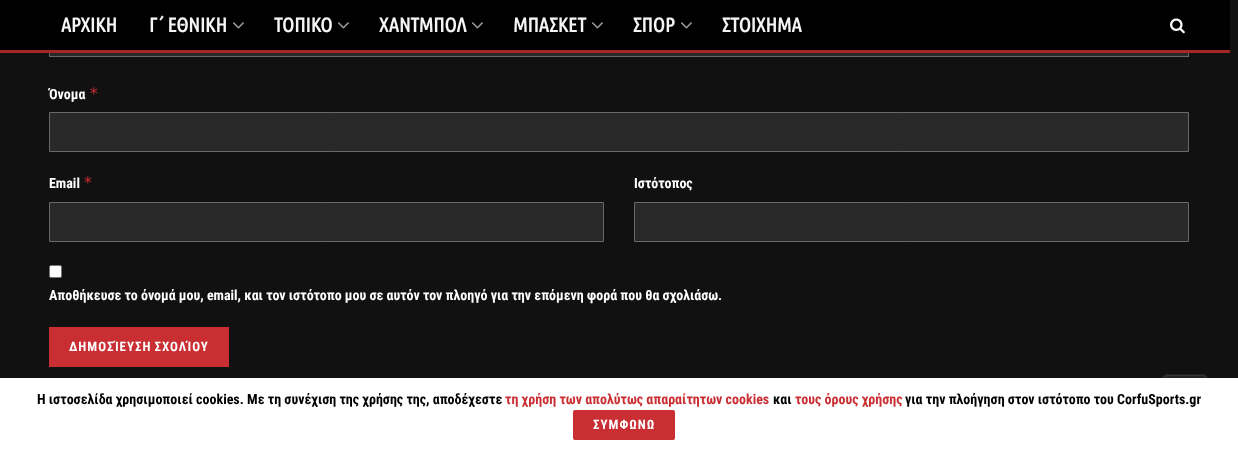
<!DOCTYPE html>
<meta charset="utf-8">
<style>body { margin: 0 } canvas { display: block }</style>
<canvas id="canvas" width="1238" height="450"></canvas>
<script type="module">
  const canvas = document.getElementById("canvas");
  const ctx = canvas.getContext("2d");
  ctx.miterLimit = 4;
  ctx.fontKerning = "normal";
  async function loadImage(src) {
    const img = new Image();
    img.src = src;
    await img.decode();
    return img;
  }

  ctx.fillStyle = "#111111";
  ctx.fillRect(0, 0, 1238, 450);
  ctx.fillStyle = "#292929";
  ctx.fillRect(50, 53, 1138, 3);
  ctx.strokeStyle = "#696969";
  ctx.strokeRect(49.5, -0.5, 1139, 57);
  ctx.fillStyle = "#000000";
  ctx.fillRect(0, 0, 1230, 50);
  ctx.fillStyle = "#a52626";
  ctx.fillRect(0, 50, 1230, 3);
  ctx.font = "bold 20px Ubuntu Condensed";
  ctx.fillStyle = "#f5f5f5";
  ctx.fillText("ΑΡΧΙΚΗ", 61, 32);
  ctx.fillText("Γ΄ ΕΘΝΙΚΗ", 149, 32);
  ctx.drawImage(await loadImage("img1.png"), 233, 22, 11, 7);
  ctx.fillText("ΤΟΠΙΚΟ", 274, 32);
  ctx.drawImage(await loadImage("img1.png"), 338, 22, 11, 7);
  ctx.fillText("ΧΑΝΤΜΠΟΛ", 379, 32);
  ctx.drawImage(await loadImage("img1.png"), 472, 22, 11, 7);
  ctx.fillText("ΜΠΑΣΚΕΤ", 513, 32);
  ctx.drawImage(await loadImage("img1.png"), 592, 22, 11, 7);
  ctx.fillText("ΣΠΟΡ", 633, 32);
  ctx.drawImage(await loadImage("img1.png"), 681, 22, 11, 7);
  ctx.fillText("ΣΤΟΙΧΗΜΑ", 722, 32);
  ctx.drawImage(await loadImage("img2.png"), 1170, 18, 15, 16);
  ctx.font = "bold 14px Roboto Condensed";
  ctx.fillStyle = "#ffffff";
  ctx.fillText("Όνομα", 49, 99);
  ctx.font = "16px DejaVu Sans Mono";
  ctx.fillStyle = "#c92e33";
  ctx.fillText("*", 89, 99);
  ctx.fillStyle = "#292929";
  ctx.beginPath();
  ctx.rect(49.5, 112.5, 1139, 39);
  ctx.fill();
  ctx.stroke();
  ctx.font = "bold 14px Roboto Condensed";
  ctx.fillStyle = "#ffffff";
  ctx.fillText("Email", 49, 188);
  ctx.font = "16px DejaVu Sans Mono";
  ctx.fillStyle = "#c92e33";
  ctx.fillText("*", 83, 188);
  ctx.fillStyle = "#292929";
  ctx.beginPath();
  ctx.rect(49.5, 202.5, 554, 39);
  ctx.fill();
  ctx.stroke();
  ctx.font = "bold 14px Roboto Condensed";
  ctx.fillStyle = "#ffffff";
  ctx.fillText("Ιστότοπος", 634, 188);
  ctx.fillStyle = "#292929";
  ctx.beginPath();
  ctx.rect(634.5, 202.5, 554, 39);
  ctx.fill();
  ctx.stroke();
  ctx.fillStyle = "#ffffff";
  ctx.beginPath();
  ctx.roundRect(49.5, 265.5, 12, 12, 1.5);
  ctx.fill();
  ctx.strokeStyle = "#767676";
  ctx.stroke();
  ctx.fillText("Αποθήκευσε το όνομά μου, email, και τον ιστότοπο μου σε αυτόν τον πλοηγό για την επόμενη φορά που θα σχολιάσω.", 49, 300);
  ctx.fillStyle = "#c92e33";
  ctx.fillRect(49, 327, 180, 40);
  ctx.letterSpacing = "1px";
  ctx.wordSpacing = "-1px";
  ctx.font = "bold 13px Roboto Condensed";
  ctx.fillStyle = "#ffffff";
  ctx.fillText("ΔΗΜΟΣΊΕΥΣΗ ΣΧΟΛΊΟΥ", 69, 351);
  ctx.fillStyle = "#252525";
  ctx.beginPath();
  ctx.roundRect(1162, 374, 46, 46, 5);
  ctx.fill();
  ctx.beginPath();
  ctx.roundRect(1163.5, 375.5, 43, 43, 3.5);
  ctx.strokeStyle = "#363636";
  ctx.stroke();
  ctx.beginPath();
  ctx.roundRect(1162.5, 374.5, 45, 45, 4.5);
  ctx.strokeStyle = "rgba(3, 3, 3, 0.11)";
  ctx.stroke();
  ctx.fillStyle = "#ffffff";
  ctx.fillRect(0, 378, 1238, 72);
  ctx.letterSpacing = "0px";
  ctx.wordSpacing = "0px";
  ctx.font = "bold 14px Roboto Condensed";
  ctx.fillStyle = "#000000";
  ctx.fillText("Η ιστοσελίδα χρησιμοποιεί cookies. Με τη συνέχιση της χρήσης της, αποδέχεστε", 37, 404);
  ctx.fillStyle = "#c92e33";
  ctx.fillText("τη χρήση των απολύτως απαραίτητων cookies", 505, 404);
  ctx.fillStyle = "#000000";
  ctx.fillText("και", 773, 404);
  ctx.fillStyle = "#c92e33";
  ctx.fillText("τους όρους χρήσης", 795, 404);
  ctx.fillStyle = "#000000";
  ctx.fillText("για την πλοήγηση στον ιστότοπο του CorfuSports.gr", 905, 404);
  ctx.fillStyle = "#c92e33";
  ctx.beginPath();
  ctx.roundRect(573, 410, 102, 30, 2);
  ctx.fill();
  ctx.letterSpacing = "1px";
  ctx.font = "bold 13px Roboto Condensed";
  ctx.fillStyle = "#ffffff";
  ctx.fillText("ΣΥΜΦΩΝΩ", 593, 429);
</script>
